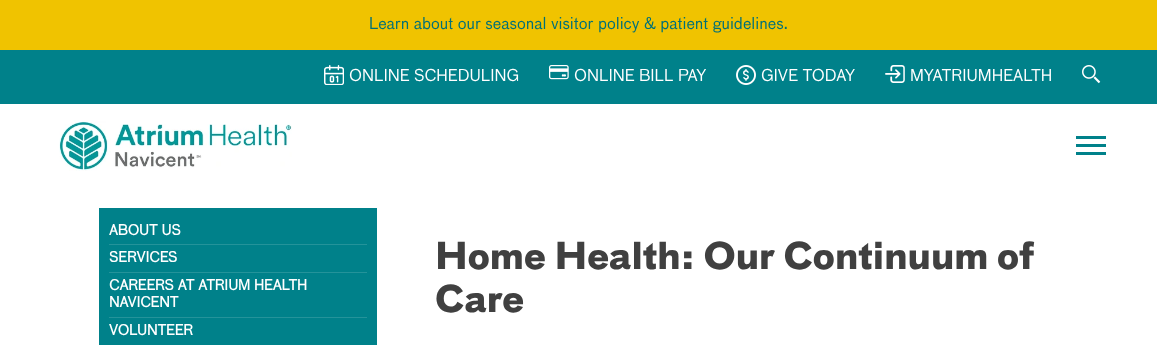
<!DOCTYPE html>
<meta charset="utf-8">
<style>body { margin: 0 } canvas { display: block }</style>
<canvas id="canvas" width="1157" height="345"></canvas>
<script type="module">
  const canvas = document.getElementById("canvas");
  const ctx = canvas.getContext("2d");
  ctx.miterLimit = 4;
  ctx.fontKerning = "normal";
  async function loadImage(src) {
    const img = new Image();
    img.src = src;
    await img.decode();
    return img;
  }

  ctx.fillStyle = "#ffffff";
  ctx.fillRect(0, 0, 1157, 345);
  ctx.fillStyle = "#f0c300";
  ctx.fillRect(0, 0, 1157, 50);
  ctx.font = "16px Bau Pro";
  ctx.fillStyle = "#007078";
  ctx.fillText("Learn about our seasonal visitor policy & patient guidelines.", 369, 29);
  ctx.fillStyle = "#00818a";
  ctx.fillRect(0, 50, 1157, 54);
  ctx.drawImage(await loadImage("img1.png"), 324, 65, 20, 20);
  ctx.fillStyle = "#ffffff";
  ctx.fillText("ONLINE SCHEDULING", 349, 81);
  ctx.drawImage(await loadImage("img2.png"), 549, 65, 20, 15);
  ctx.fillText("ONLINE BILL PAY", 574, 81);
  ctx.drawImage(await loadImage("img3.png"), 736, 65, 20, 20);
  ctx.fillText("GIVE TODAY", 761, 81);
  ctx.drawImage(await loadImage("img4.png"), 885, 65, 20, 18);
  ctx.fillText("MYATRIUMHEALTH", 910, 81);
  ctx.drawImage(await loadImage("img5.png"), 1082, 65, 19, 19);
  ctx.drawImage(await loadImage("img6.png"), 59, 120, 233, 51);
  ctx.fillStyle = "#00818a";
  ctx.fillRect(1076, 136, 30, 3);
  ctx.fillRect(1076, 144, 30, 3);
  ctx.fillRect(1076, 152, 30, 3);
  ctx.fillRect(99, 208, 278, 137);
  ctx.fillStyle = "#24939a";
  ctx.fillRect(109, 244, 258, 1);
  ctx.font = "bold 14px Bau Pro";
  ctx.fillStyle = "#ffffff";
  ctx.fillText("ABOUT US", 109, 235);
  ctx.fillStyle = "#24939a";
  ctx.fillRect(109, 272, 258, 1);
  ctx.fillStyle = "#ffffff";
  ctx.fillText("SERVICES", 109, 262);
  ctx.fillStyle = "#24939a";
  ctx.fillRect(109, 317, 258, 1);
  ctx.fillStyle = "#ffffff";
  ctx.fillText("CAREERS AT ATRIUM HEALTH", 109, 290);
  ctx.fillText("NAVICENT", 109, 307);
  ctx.fillText("VOLUNTEER", 109, 335);
  ctx.font = "bold 36px 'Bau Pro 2'";
  ctx.fillStyle = "#404040";
  ctx.fillText("Home Health: Our Continuum of", 435, 269);
  ctx.fillText("Care", 435, 312);
</script>
